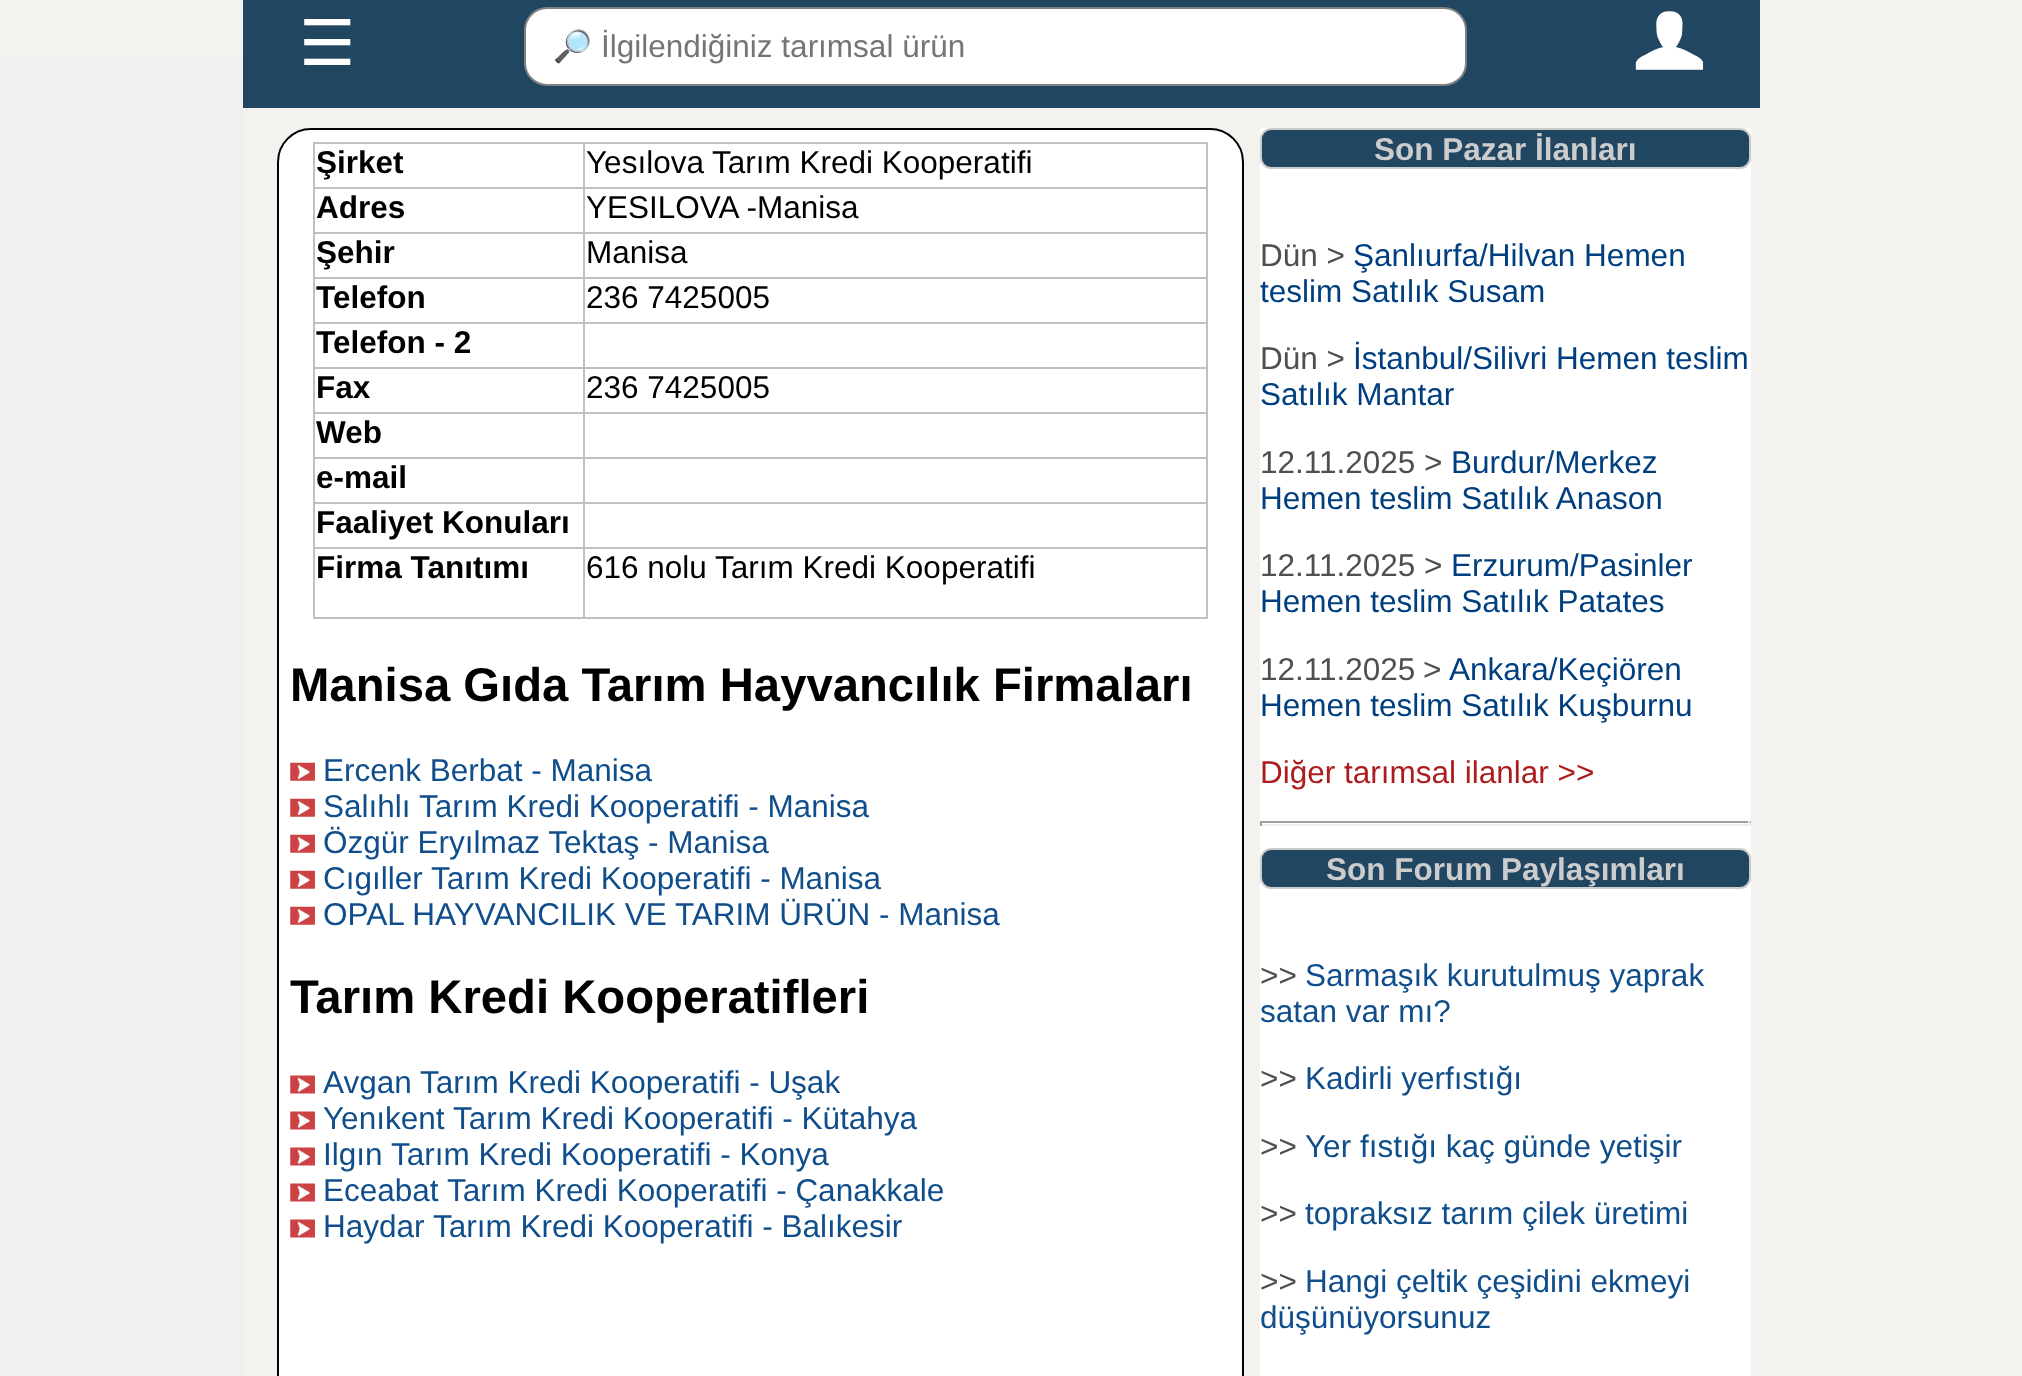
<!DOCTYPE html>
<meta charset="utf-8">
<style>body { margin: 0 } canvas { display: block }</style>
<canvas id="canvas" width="2022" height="1376"></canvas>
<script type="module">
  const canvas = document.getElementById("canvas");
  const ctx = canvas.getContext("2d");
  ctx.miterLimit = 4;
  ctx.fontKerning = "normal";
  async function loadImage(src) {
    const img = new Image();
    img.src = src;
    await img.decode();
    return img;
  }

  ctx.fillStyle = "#f3f2ef";
  ctx.fillRect(0, 0, 2022, 1376);
  ctx.fillStyle = "#214661";
  ctx.fillRect(243, 0, 1517, 108);
  ctx.font = "63px DejaVu Sans";
  ctx.fillStyle = "#ffffff";
  ctx.fillText("☰", 299, 65);
  ctx.beginPath();
  ctx.roundRect(525, 8, 941, 77, 22);
  ctx.fill();
  ctx.strokeStyle = "#808080";
  ctx.lineWidth = 2;
  ctx.stroke();
  ctx.save();
  ctx.beginPath();
  ctx.rect(545, 29, 902, 36);
  ctx.clip();
  ctx.font = "31.5px Noto Color Emoji";
  ctx.fillStyle = "#757575";
  ctx.fillText("🔎", 553, 57);
  ctx.restore();
  ctx.font = "31.5px Liberation Sans";
  ctx.fillStyle = "#757575";
  ctx.fillText("İlgilendiğiniz tarımsal ürün", 601, 57);
  ctx.drawImage(await loadImage("img1.png"), 1635, 11, 69, 59);
  ctx.fillStyle = "#f0f0f0";
  ctx.fillRect(0, 54, 243, 1322);
  ctx.fillStyle = "#ffffff";
  ctx.beginPath();
  ctx.roundRect(278, 129, 965, 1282, 33);
  ctx.fill();
  ctx.strokeStyle = "#000000";
  ctx.stroke();
  ctx.fillStyle = "#c0c0c0";
  ctx.fillRect(313, 142, 895, 2);
  ctx.fillRect(1206, 142, 2, 477);
  ctx.fillRect(313, 617, 895, 2);
  ctx.fillRect(313, 142, 2, 477);
  ctx.font = "bold 31.5px Liberation Sans";
  ctx.fillStyle = "#000000";
  ctx.fillText("Şirket", 316, 173);
  ctx.fillStyle = "#c0c0c0";
  ctx.fillRect(583, 187, 625, 2);
  ctx.fillRect(583, 232, 625, 2);
  ctx.fillRect(583, 277, 625, 2);
  ctx.fillRect(583, 322, 625, 2);
  ctx.fillRect(583, 367, 625, 2);
  ctx.fillRect(583, 412, 625, 2);
  ctx.fillRect(583, 457, 625, 2);
  ctx.fillRect(583, 502, 625, 2);
  ctx.fillRect(583, 547, 625, 2);
  ctx.fillRect(583, 547, 2, 72);
  ctx.fillRect(313, 547, 272, 2);
  ctx.fillRect(583, 502, 2, 47);
  ctx.fillRect(313, 502, 272, 2);
  ctx.fillRect(583, 457, 2, 47);
  ctx.fillRect(313, 457, 272, 2);
  ctx.fillRect(583, 412, 2, 47);
  ctx.fillRect(313, 412, 272, 2);
  ctx.fillRect(583, 367, 2, 47);
  ctx.fillRect(313, 367, 272, 2);
  ctx.fillRect(583, 322, 2, 47);
  ctx.fillRect(313, 322, 272, 2);
  ctx.fillRect(583, 277, 2, 47);
  ctx.fillRect(313, 277, 272, 2);
  ctx.fillRect(583, 232, 2, 47);
  ctx.fillRect(313, 232, 272, 2);
  ctx.fillRect(583, 187, 2, 47);
  ctx.fillRect(313, 187, 272, 2);
  ctx.fillRect(583, 142, 2, 47);
  ctx.font = "31.5px Liberation Sans";
  ctx.fillStyle = "#000000";
  ctx.fillText("Yesılova", 586, 173);
  ctx.fillText("Tarım Kredi Kooperatifi", 712, 173);
  ctx.font = "bold 31.5px Liberation Sans";
  ctx.fillText("Adres", 316, 218);
  ctx.font = "31.5px Liberation Sans";
  ctx.fillText("YESILOVA -Manisa", 586, 218);
  ctx.font = "bold 31.5px Liberation Sans";
  ctx.fillText("Şehir", 316, 263);
  ctx.font = "31.5px Liberation Sans";
  ctx.fillText("Manisa", 586, 263);
  ctx.font = "bold 31.5px Liberation Sans";
  ctx.fillText("Telefon", 316, 308);
  ctx.font = "31.5px Liberation Sans";
  ctx.fillText("236 7425005", 586, 308);
  ctx.font = "bold 31.5px Liberation Sans";
  ctx.fillText("Telefon - 2", 316, 353);
  ctx.fillText("Fax", 316, 398);
  ctx.font = "31.5px Liberation Sans";
  ctx.fillText("236 7425005", 586, 398);
  ctx.font = "bold 31.5px Liberation Sans";
  ctx.fillText("Web", 316, 443);
  ctx.fillText("e-mail", 316, 488);
  ctx.fillText("Faaliyet Konuları", 316, 533);
  ctx.fillText("Firma Tanıtımı", 316, 578);
  ctx.font = "31.5px Liberation Sans";
  ctx.fillText("616 nolu Tarım Kredi Kooperatifi", 586, 578);
  ctx.font = "bold 47.25px Liberation Sans";
  ctx.fillText("Manisa Gıda Tarım Hayvancılık Firmaları", 290, 701);
  ctx.drawImage(await loadImage("img2.png"), 290, 762, 25, 19);
  ctx.font = "31.5px Liberation Sans";
  ctx.fillStyle = "#104e8b";
  ctx.fillText("Ercenk Berbat - Manisa", 323, 781);
  ctx.drawImage(await loadImage("img2.png"), 290, 798, 25, 19);
  ctx.fillText("Salıhlı", 323, 817);
  ctx.fillText("Tarım Kredi Kooperatifi - Manisa", 419, 817);
  ctx.drawImage(await loadImage("img3.png"), 290, 834, 25, 19);
  ctx.fillText("Özgür Eryılmaz Tektaş - Manisa", 323, 853);
  ctx.drawImage(await loadImage("img3.png"), 290, 870, 25, 19);
  ctx.fillText("Cıgıller", 323, 889);
  ctx.fillText("Tarım Kredi Kooperatifi - Manisa", 431, 889);
  ctx.drawImage(await loadImage("img3.png"), 290, 906, 25, 19);
  ctx.fillText("OPAL HAYVANCILIK VE TARIM ÜRÜN - Manisa", 323, 925);
  ctx.font = "bold 47.25px Liberation Sans";
  ctx.fillStyle = "#000000";
  ctx.fillText("Tarım Kredi Kooperatifleri", 290, 1013);
  ctx.drawImage(await loadImage("img4.png"), 290, 1075, 25, 19);
  ctx.font = "31.5px Liberation Sans";
  ctx.fillStyle = "#104e8b";
  ctx.fillText("Avgan", 323, 1093);
  ctx.fillText("Tarım Kredi Kooperatifi - Uşak", 420, 1093);
  ctx.drawImage(await loadImage("img4.png"), 290, 1111, 25, 19);
  ctx.fillText("Yenıkent", 323, 1129);
  ctx.fillText("Tarım Kredi Kooperatifi - Kütahya", 453, 1129);
  ctx.drawImage(await loadImage("img4.png"), 290, 1147, 25, 19);
  ctx.fillText("Ilgın", 323, 1165);
  ctx.fillText("Tarım Kredi Kooperatifi - Konya", 391, 1165);
  ctx.drawImage(await loadImage("img4.png"), 290, 1183, 25, 19);
  ctx.fillText("Eceabat", 323, 1201);
  ctx.fillText("Tarım Kredi Kooperatifi - Çanakkale", 447, 1201);
  ctx.drawImage(await loadImage("img4.png"), 290, 1219, 25, 19);
  ctx.fillText("Haydar", 323, 1237);
  ctx.fillText("Tarım Kredi Kooperatifi - Balıkesir", 433, 1237);
  ctx.fillStyle = "#ffffff";
  ctx.fillRect(1260, 128, 491, 1248);
  ctx.fillStyle = "#214661";
  ctx.beginPath();
  ctx.roundRect(1261, 129, 489, 39, 10);
  ctx.fill();
  ctx.strokeStyle = "#cccccc";
  ctx.stroke();
  ctx.font = "bold 31.5px Liberation Sans";
  ctx.fillStyle = "#cccccc";
  ctx.fillText("Son Pazar İlanları", 1374, 160);
  ctx.font = "31.5px Liberation Sans";
  ctx.fillStyle = "#4f4f4f";
  ctx.fillText("Dün >", 1260, 266);
  ctx.fillStyle = "#003f7f";
  ctx.fillText("Şanlıurfa/Hilvan Hemen", 1353, 266);
  ctx.fillText("teslim Satılık Susam", 1260, 302);
  ctx.fillStyle = "#4f4f4f";
  ctx.fillText("Dün >", 1260, 369);
  ctx.fillStyle = "#003f7f";
  ctx.fillText("İstanbul/Silivri Hemen teslim", 1353, 369);
  ctx.fillText("Satılık Mantar", 1260, 405);
  ctx.fillStyle = "#4f4f4f";
  ctx.fillText("12.11.2025 >", 1260, 473);
  ctx.fillStyle = "#003f7f";
  ctx.fillText("Burdur/Merkez", 1451, 473);
  ctx.fillText("Hemen teslim Satılık Anason", 1260, 509);
  ctx.fillStyle = "#4f4f4f";
  ctx.fillText("12.11.2025 >", 1260, 576);
  ctx.fillStyle = "#003f7f";
  ctx.fillText("Erzurum/Pasinler", 1451, 576);
  ctx.fillText("Hemen teslim Satılık Patates", 1260, 612);
  ctx.wordSpacing = "-1px";
  ctx.fillStyle = "#4f4f4f";
  ctx.fillText("12.11.2025 >", 1260, 680);
  ctx.wordSpacing = "0px";
  ctx.fillStyle = "#003f7f";
  ctx.fillText("Ankara/Keçiören", 1449, 680);
  ctx.fillText("Hemen teslim Satılık Kuşburnu", 1260, 716);
  ctx.fillStyle = "#ad1c1c";
  ctx.fillText("Diğer tarımsal ilanlar >>", 1260, 783);
  ctx.fillStyle = "#9f9f9f";
  ctx.fillRect(1260, 821, 491, 2);
  ctx.fillStyle = "#eeeeee";
  ctx.fillRect(1748, 821, 2, 5);
  ctx.fillRect(1260, 824, 491, 2);
  ctx.fillStyle = "#9f9f9f";
  ctx.fillRect(1260, 821, 2, 5);
  ctx.fillStyle = "#214661";
  ctx.beginPath();
  ctx.roundRect(1261, 849, 489, 39, 10);
  ctx.fill();
  ctx.stroke();
  ctx.font = "bold 31.5px Liberation Sans";
  ctx.fillStyle = "#cccccc";
  ctx.fillText("Son Forum Paylaşımları", 1326, 880);
  ctx.font = "31.5px Liberation Sans";
  ctx.fillStyle = "#4f4f4f";
  ctx.fillText(">>", 1260, 986);
  ctx.fillStyle = "#104e8b";
  ctx.fillText("Sarmaşık kurutulmuş yaprak", 1305, 986);
  ctx.fillText("satan var mı?", 1260, 1022);
  ctx.fillStyle = "#4f4f4f";
  ctx.fillText(">>", 1260, 1089);
  ctx.fillStyle = "#104e8b";
  ctx.fillText("Kadirli yerfıstığı", 1305, 1089);
  ctx.fillStyle = "#4f4f4f";
  ctx.fillText(">>", 1260, 1157);
  ctx.fillStyle = "#104e8b";
  ctx.fillText("Yer fıstığı kaç günde yetişir", 1305, 1157);
  ctx.fillStyle = "#4f4f4f";
  ctx.fillText(">>", 1260, 1224);
  ctx.fillStyle = "#104e8b";
  ctx.fillText("topraksız tarım çilek üretimi", 1305, 1224);
  ctx.fillStyle = "#4f4f4f";
  ctx.fillText(">>", 1260, 1292);
  ctx.fillStyle = "#104e8b";
  ctx.fillText("Hangi çeltik çeşidini ekmeyi", 1305, 1292);
  ctx.fillText("düşünüyorsunuz", 1260, 1328);
</script>
